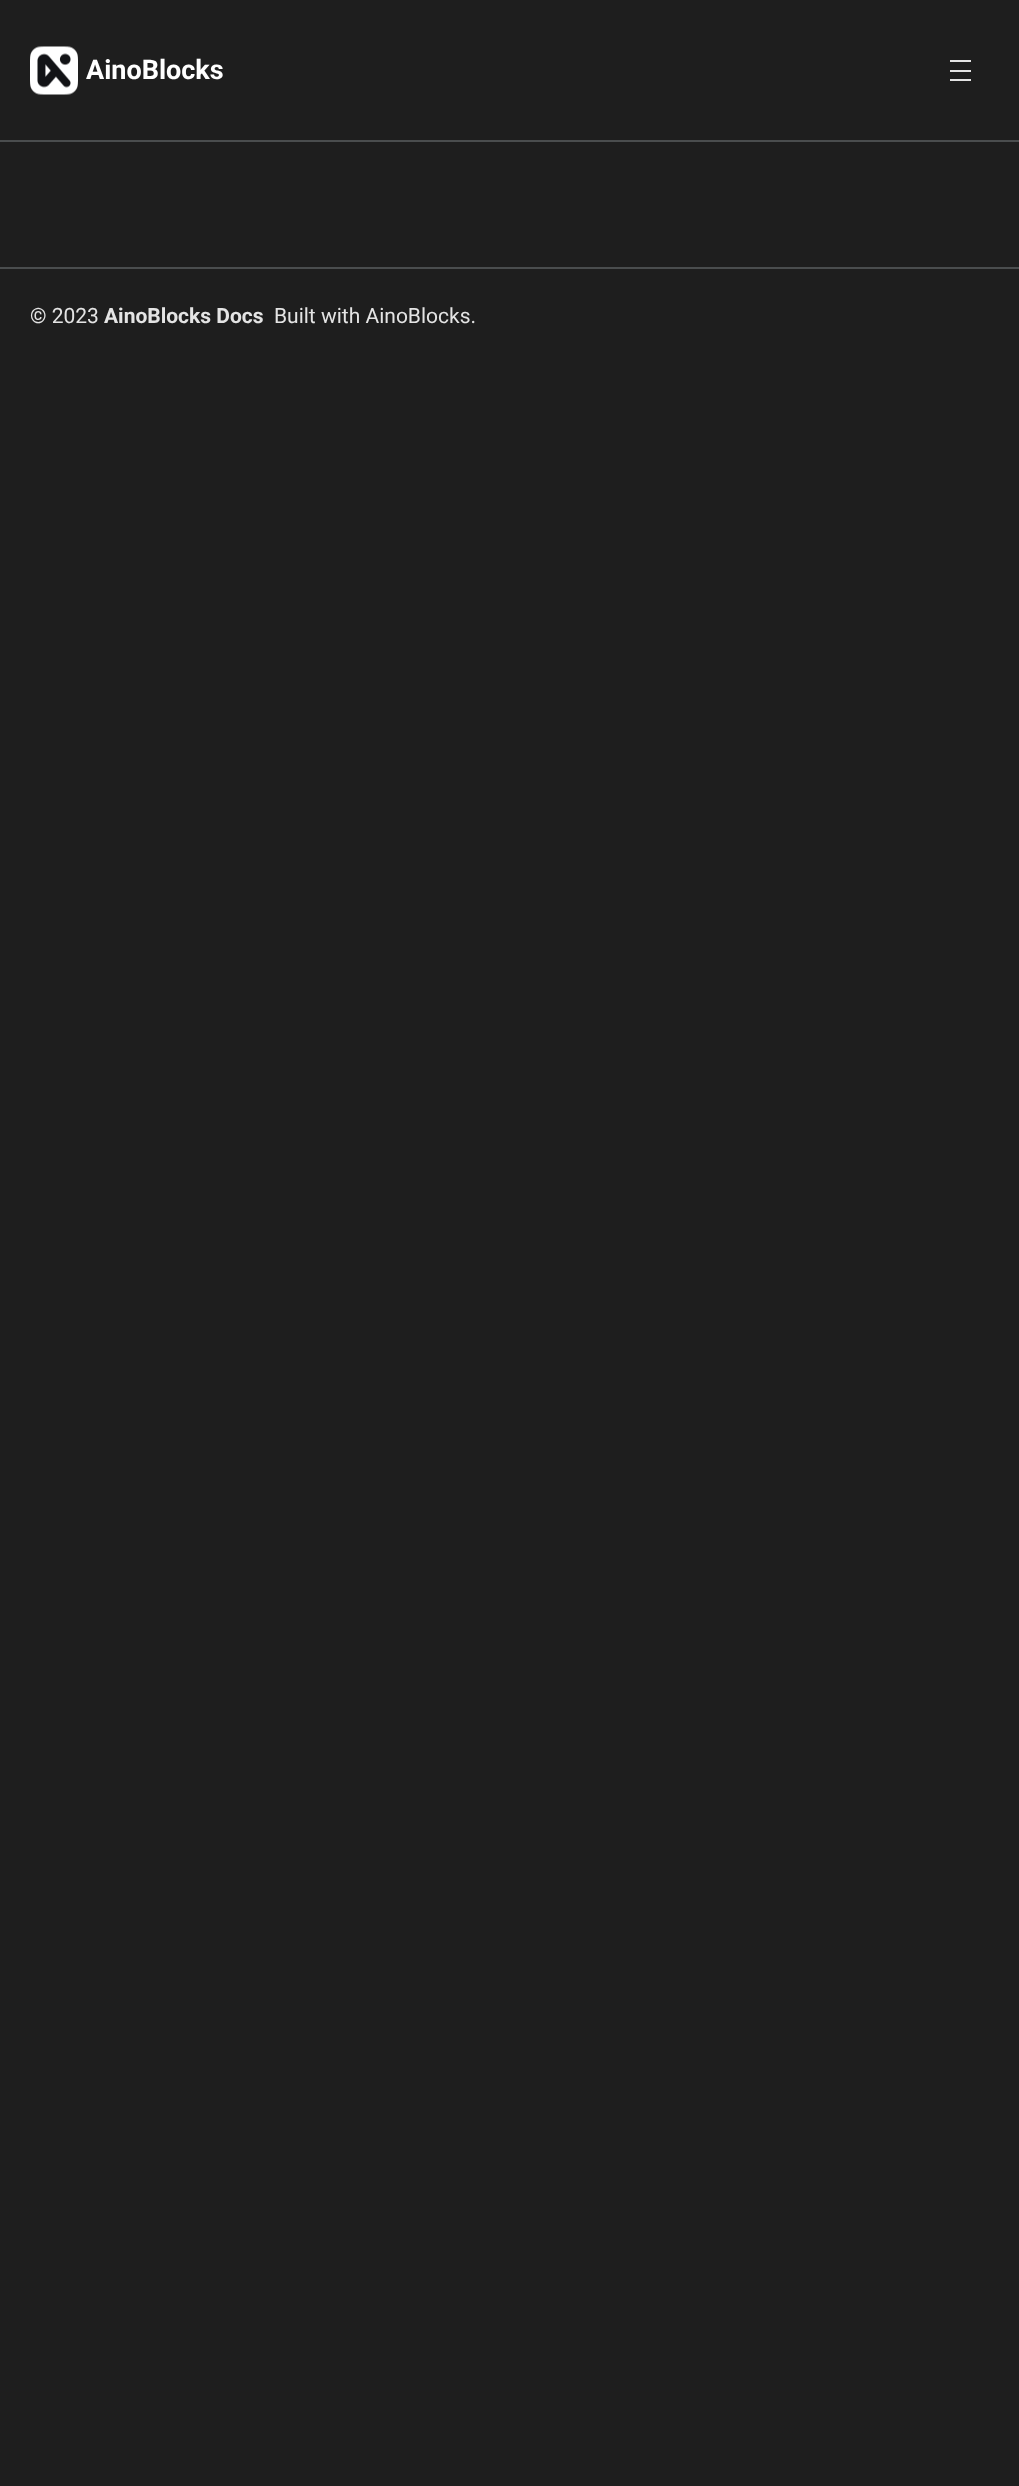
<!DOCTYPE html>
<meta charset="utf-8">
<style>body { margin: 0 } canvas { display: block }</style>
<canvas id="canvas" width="1019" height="2486"></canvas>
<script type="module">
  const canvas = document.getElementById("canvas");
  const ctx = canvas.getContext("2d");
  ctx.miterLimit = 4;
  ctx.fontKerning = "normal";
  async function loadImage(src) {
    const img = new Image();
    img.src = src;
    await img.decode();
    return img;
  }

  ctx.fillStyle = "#1e1e1e";
  ctx.fillRect(0, 0, 1019, 2486);
  ctx.drawImage(await loadImage("img1.png"), 30, 46, 48, 49);
  ctx.font = "bold 27px Roboto";
  ctx.fillStyle = "#ffffff";
  ctx.fillText("AinoBlocks", 86, 79);
  ctx.fillStyle = "#e4e4e4";
  ctx.fillRect(950, 60, 21, 2);
  ctx.fillRect(950, 70, 21, 2);
  ctx.fillRect(950, 79, 21, 2);
  ctx.fillStyle = "#4a4d4e";
  ctx.fillRect(0, 140, 1019, 2);
  ctx.fillRect(0, 267, 1019, 2);
  ctx.font = "21px Roboto";
  ctx.fillStyle = "#e4e4e4";
  ctx.fillText("© 2023", 30, 323);
  ctx.font = "bold 21px Roboto";
  ctx.fillText("AinoBlocks Docs", 104, 323);
  ctx.font = "21px Roboto";
  ctx.fillText("Built with AinoBlocks.", 274, 323);
</script>
